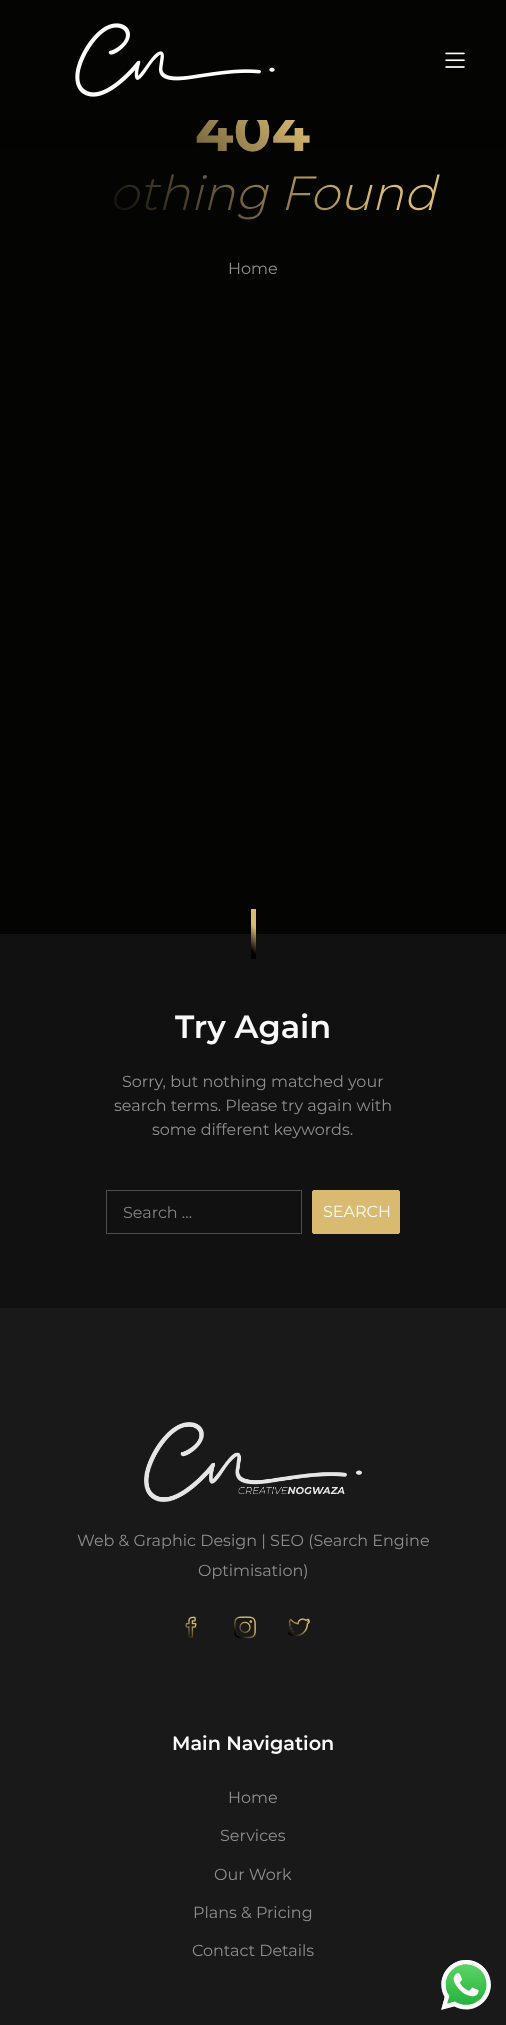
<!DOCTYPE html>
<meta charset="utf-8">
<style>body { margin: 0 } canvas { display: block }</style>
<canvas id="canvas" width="506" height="2025"></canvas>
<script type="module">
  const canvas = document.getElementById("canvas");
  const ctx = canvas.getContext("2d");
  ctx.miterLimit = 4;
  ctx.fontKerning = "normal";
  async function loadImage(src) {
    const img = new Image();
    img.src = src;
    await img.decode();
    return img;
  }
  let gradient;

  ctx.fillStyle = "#111111";
  ctx.fillRect(0, 0, 506, 2025);
  ctx.fillStyle = "#040402";
  ctx.fillRect(0, 120, 506, 814);
  ctx.fillStyle = "rgba(0, 0, 0, 0.09)";
  ctx.filter = "blur(14px)";
  ctx.beginPath();
  ctx.rect(0, 2, 506, 120);
  ctx.fill();
  ctx.filter = "none";
  ctx.font = "bold 56px Montserrat";
  gradient = ctx.createLinearGradient(100, 313, 406, 7.7);
  gradient.addColorStop(0.15, "#000000");
  gradient.addColorStop(0.65, "#d8ba70");
  ctx.fillStyle = gradient;
  ctx.fillText("404", 195, 151);
  ctx.fillStyle = "#040402";
  ctx.fillRect(0, 0, 506, 120);
  ctx.drawImage(await loadImage("img1.png"), 75, 23, 200, 74);
  ctx.drawImage(await loadImage("img2.png"), 445, 52, 20, 16);
  ctx.font = "italic 300 48px Montserrat";
  gradient = ctx.createLinearGradient(100, 313, 406, 7.7);
  gradient.addColorStop(0.15, "#000000");
  gradient.addColorStop(0.65, "#d8ba70");
  ctx.fillStyle = gradient;
  ctx.fillText("othing Found", 109, 210);
  ctx.font = "16px Montserrat";
  ctx.fillStyle = "#8e8e8e";
  ctx.fillText("Home", 228, 274);
  gradient = ctx.createLinearGradient(240, 948, 267, 920);
  gradient.addColorStop(0.15, "#000000");
  gradient.addColorStop(0.65, "#d8ba70");
  ctx.fillStyle = gradient;
  ctx.fillRect(251, 909, 5, 50);
  ctx.font = "600 32px Montserrat";
  ctx.fillStyle = "#f9f9f9";
  ctx.fillText("Try Again", 175, 1038);
  ctx.font = "16px Montserrat";
  ctx.fillStyle = "#8e8e8e";
  ctx.fillText("Sorry, but nothing matched your", 122, 1087);
  ctx.fillText("search terms. Please try again with", 114, 1111);
  ctx.fillText("some different keywords.", 152, 1135);
  ctx.strokeStyle = "#4d4d4d";
  ctx.strokeRect(106.5, 1190.5, 195, 43);
  ctx.fillStyle = "#838383";
  ctx.fillText("Search …", 123, 1218);
  ctx.fillStyle = "#d8ba70";
  ctx.beginPath();
  ctx.roundRect(312.5, 1190.5, 87, 43, 1.5);
  ctx.fill();
  ctx.strokeStyle = "#d8ba70";
  ctx.stroke();
  ctx.fillStyle = "#f9f9f9";
  ctx.fillText("SEARCH", 323, 1217);
  ctx.fillStyle = "#191919";
  ctx.fillRect(0, 1308, 506, 717);
  ctx.drawImage(await loadImage("img3.png"), 144, 1422, 218, 80);
  ctx.fillStyle = "#8e8e8e";
  ctx.fillText("Web & Graphic Design | SEO (Search Engine", 77, 1546);
  ctx.fillText("Optimisation)", 198, 1576);
  ctx.drawImage(await loadImage("img4.png"), 185, 1616, 12, 22);
  ctx.drawImage(await loadImage("img5.png"), 234, 1616, 22, 23);
  ctx.drawImage(await loadImage("img6.png"), 288, 1618, 22, 19);
  ctx.font = "600 19.25px Montserrat";
  ctx.fillStyle = "#f9f9f9";
  ctx.fillText("Main Navigation", 172, 1750);
  ctx.font = "16px Montserrat";
  ctx.fillStyle = "#8e8e8e";
  ctx.fillText("Home", 228, 1803);
  ctx.fillText("Services", 220, 1841);
  ctx.fillText("Our Work", 214, 1880);
  ctx.fillText("Plans & Pricing", 193, 1918);
  ctx.fillText("Contact Details", 192, 1956);
  ctx.drawImage(await loadImage("img7.png"), 441, 1960, 50, 50);
</script>
